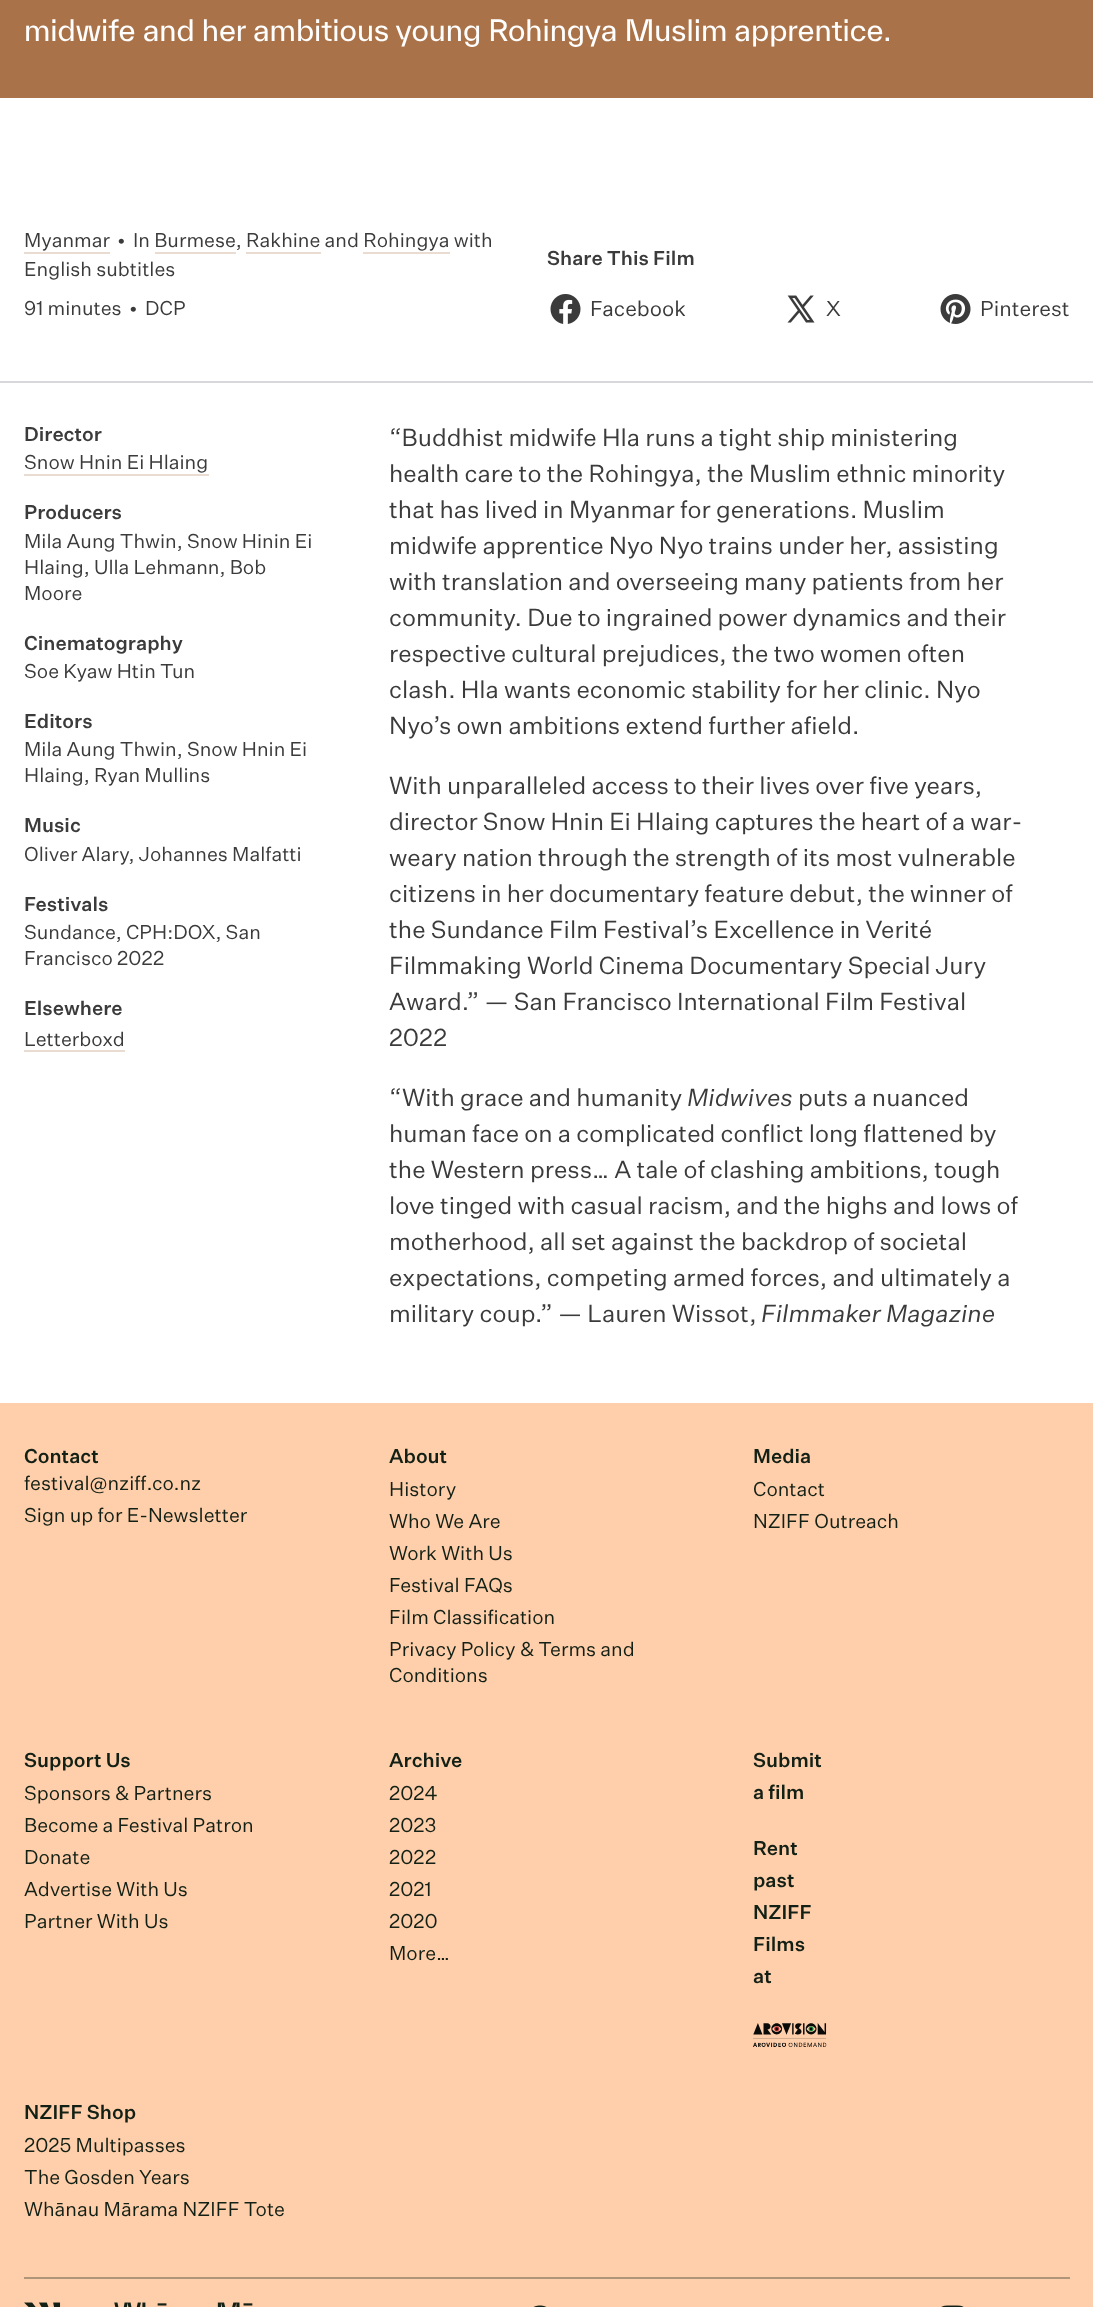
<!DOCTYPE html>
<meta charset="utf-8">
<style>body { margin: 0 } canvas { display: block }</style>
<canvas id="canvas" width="1093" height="2307"></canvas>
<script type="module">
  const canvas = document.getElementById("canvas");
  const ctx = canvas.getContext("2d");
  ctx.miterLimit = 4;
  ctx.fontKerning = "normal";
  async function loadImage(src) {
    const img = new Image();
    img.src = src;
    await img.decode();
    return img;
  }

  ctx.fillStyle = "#ffffff";
  ctx.fillRect(0, 0, 1093, 2307);
  ctx.fillStyle = "#aa7248";
  ctx.fillRect(0, 0, 1093, 98);
  ctx.font = "28.5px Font";
  ctx.fillStyle = "#ffffff";
  ctx.fillText("midwife and her ambitious young Rohingya Muslim apprentice.", 24, 41);
  ctx.fillStyle = "#d8d8dc";
  ctx.fillRect(0, 381, 1093, 2);
  ctx.font = "19.5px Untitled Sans";
  ctx.fillStyle = "#3b3b3b";
  ctx.fillText("Myanmar", 24, 247);
  ctx.fillStyle = "#eadcd1";
  ctx.fillRect(24, 252, 86, 2);
  ctx.fillStyle = "#3b3b3b";
  ctx.fillText("•", 117, 247);
  ctx.fillText("In Burmese, Rakhine and Rohingya with", 133, 247);
  ctx.fillStyle = "#eadcd1";
  ctx.fillRect(155, 252, 81, 2);
  ctx.fillRect(246, 252, 75, 2);
  ctx.fillRect(363, 252, 87, 2);
  ctx.fillStyle = "#3b3b3b";
  ctx.fillText("English subtitles", 24, 276);
  ctx.fillText("91 minutes", 24, 315);
  ctx.fillText("•", 129, 315);
  ctx.fillText("DCP", 145, 315);
  ctx.font = "500 19.5px Untitled Sans";
  ctx.fillText("Share This Film", 547, 265);
  ctx.drawImage(await loadImage("img1.png"), 550, 294, 31, 30);
  ctx.font = "21px Untitled Sans";
  ctx.fillText("Facebook", 590, 316);
  ctx.drawImage(await loadImage("img2.png"), 787, 295, 28, 28);
  ctx.fillText("X", 826, 316);
  ctx.drawImage(await loadImage("img3.png"), 940, 294, 31, 30);
  ctx.fillText("Pinterest", 980, 316);
  ctx.font = "500 19.5px Untitled Sans";
  ctx.fillText("Director", 24, 441);
  ctx.font = "19.5px Untitled Sans";
  ctx.fillText("Snow Hnin Ei Hlaing", 24, 469);
  ctx.fillStyle = "#eadcd1";
  ctx.fillRect(24, 474, 185, 2);
  ctx.font = "500 19.5px Untitled Sans";
  ctx.fillStyle = "#3b3b3b";
  ctx.fillText("Producers", 24, 519);
  ctx.font = "19.5px Untitled Sans";
  ctx.fillText("Mila Aung Thwin, Snow Hinin Ei", 24, 548);
  ctx.fillText("Hlaing, Ulla Lehmann, Bob", 24, 574);
  ctx.fillText("Moore", 24, 600);
  ctx.font = "500 19.5px Untitled Sans";
  ctx.fillText("Cinematography", 24, 650);
  ctx.font = "19.5px Untitled Sans";
  ctx.fillText("Soe Kyaw Htin Tun", 24, 678);
  ctx.font = "500 19.5px Untitled Sans";
  ctx.fillText("Editors", 24, 728);
  ctx.font = "19.5px Untitled Sans";
  ctx.fillText("Mila Aung Thwin, Snow Hnin Ei", 24, 756);
  ctx.fillText("Hlaing, Ryan Mullins", 24, 782);
  ctx.font = "500 19.5px Untitled Sans";
  ctx.fillText("Music", 24, 832);
  ctx.font = "19.5px Untitled Sans";
  ctx.fillText("Oliver Alary, Johannes Malfatti", 24, 861);
  ctx.font = "500 19.5px Untitled Sans";
  ctx.fillText("Festivals", 24, 911);
  ctx.font = "19.5px Untitled Sans";
  ctx.fillText("Sundance, CPH:DOX, San", 24, 939);
  ctx.fillText("Francisco 2022", 24, 965);
  ctx.font = "500 19.5px Untitled Sans";
  ctx.fillText("Elsewhere", 24, 1015);
  ctx.font = "19.5px Untitled Sans";
  ctx.fillText("Letterboxd", 24, 1046);
  ctx.fillStyle = "#eadcd1";
  ctx.fillRect(24, 1050, 101, 2);
  ctx.font = "24px Untitled Sans";
  ctx.fillStyle = "#3b3b3b";
  ctx.fillText("“Buddhist midwife Hla runs a tight ship ministering", 389, 446);
  ctx.fillText("health care to the Rohingya, the Muslim ethnic minority", 389, 482);
  ctx.fillText("that has lived in Myanmar for generations. Muslim", 389, 518);
  ctx.fillText("midwife apprentice Nyo Nyo trains under her, assisting", 389, 554);
  ctx.fillText("with translation and overseeing many patients from her", 389, 590);
  ctx.fillText("community. Due to ingrained power dynamics and their", 389, 626);
  ctx.fillText("respective cultural prejudices, the two women often", 389, 662);
  ctx.fillText("clash. Hla wants economic stability for her clinic. Nyo", 389, 698);
  ctx.fillText("Nyo’s own ambitions extend further afield.", 389, 734);
  ctx.fillText("With unparalleled access to their lives over five years,", 389, 794);
  ctx.fillText("director Snow Hnin Ei Hlaing captures the heart of a war-", 389, 830);
  ctx.fillText("weary nation through the strength of its most vulnerable", 389, 866);
  ctx.fillText("citizens in her documentary feature debut, the winner of", 389, 902);
  ctx.fillText("the Sundance Film Festival’s Excellence in Verité", 389, 938);
  ctx.fillText("Filmmaking World Cinema Documentary Special Jury", 389, 974);
  ctx.fillText("Award.” — San Francisco International Film Festival", 389, 1010);
  ctx.fillText("2022", 389, 1046);
  ctx.fillText("“With grace and humanity", 389, 1106);
  ctx.font = "italic 24px Untitled Sans";
  ctx.fillText("Midwives", 687, 1106);
  ctx.font = "24px Untitled Sans";
  ctx.fillText("puts a nuanced", 798, 1106);
  ctx.fillText("human face on a complicated conflict long flattened by", 389, 1142);
  ctx.fillText("the Western press… A tale of clashing ambitions, tough", 389, 1178);
  ctx.fillText("love tinged with casual racism, and the highs and lows of", 389, 1214);
  ctx.fillText("motherhood, all set against the backdrop of societal", 389, 1250);
  ctx.fillText("expectations, competing armed forces, and ultimately a", 389, 1286);
  ctx.fillText("military coup.” — Lauren Wissot,", 389, 1322);
  ctx.font = "italic 24px Untitled Sans";
  ctx.fillText("Filmmaker Magazine", 761, 1322);
  ctx.fillStyle = "#ffcfab";
  ctx.fillRect(0, 1403, 1093, 904);
  ctx.font = "500 19.5px Untitled Sans";
  ctx.fillStyle = "#132015";
  ctx.fillText("Contact", 24, 1463);
  ctx.font = "19.5px Untitled Sans";
  ctx.fillText("festival@nziff.co.nz", 24, 1490);
  ctx.fillText("Sign up for E-Newsletter", 24, 1522);
  ctx.font = "500 19.5px Untitled Sans";
  ctx.fillText("About", 389, 1463);
  ctx.font = "19.5px Untitled Sans";
  ctx.fillText("History", 389, 1496);
  ctx.fillText("Who We Are", 389, 1528);
  ctx.fillText("Work With Us", 389, 1560);
  ctx.fillText("Festival FAQs", 389, 1592);
  ctx.fillText("Film Classification", 389, 1624);
  ctx.fillText("Privacy Policy & Terms and", 389, 1656);
  ctx.fillText("Conditions", 389, 1682);
  ctx.font = "500 19.5px Untitled Sans";
  ctx.fillText("Media", 753, 1463);
  ctx.font = "19.5px Untitled Sans";
  ctx.fillText("Contact", 753, 1496);
  ctx.fillText("NZIFF Outreach", 753, 1528);
  ctx.font = "500 19.5px Untitled Sans";
  ctx.fillText("Support Us", 24, 1767);
  ctx.font = "19.5px Untitled Sans";
  ctx.fillText("Sponsors & Partners", 24, 1800);
  ctx.fillText("Become a Festival Patron", 24, 1832);
  ctx.fillText("Donate", 24, 1864);
  ctx.fillText("Advertise With Us", 24, 1896);
  ctx.fillText("Partner With Us", 24, 1928);
  ctx.font = "500 19.5px Untitled Sans";
  ctx.fillText("Archive", 389, 1767);
  ctx.font = "19.5px Untitled Sans";
  ctx.fillText("2024", 389, 1800);
  ctx.fillText("2023", 389, 1832);
  ctx.fillText("2022", 389, 1864);
  ctx.fillText("2021", 389, 1896);
  ctx.fillText("2020", 389, 1928);
  ctx.fillText("More…", 389, 1960);
  ctx.font = "500 19.5px Untitled Sans";
  ctx.fillText("Submit", 753, 1767);
  ctx.fillText("a film", 753, 1799);
  ctx.fillText("Rent", 753, 1855);
  ctx.fillText("past", 753, 1887);
  ctx.fillText("NZIFF", 753, 1919);
  ctx.fillText("Films", 753, 1951);
  ctx.fillText("at", 753, 1983);
  ctx.drawImage(await loadImage("img4.png"), 753, 2023, 74, 24);
  ctx.fillText("NZIFF Shop", 24, 2119);
  ctx.font = "19.5px Untitled Sans";
  ctx.fillText("2025 Multipasses", 24, 2152);
  ctx.fillText("The Gosden Years", 24, 2184);
  ctx.fillText("Whānau Mārama NZIFF Tote", 24, 2216);
  ctx.fillStyle = "#b09579";
  ctx.fillRect(24, 2277, 1046, 2);
  ctx.drawImage(await loadImage("img5.png"), 24, 2302, 229, 5);
  ctx.drawImage(await loadImage("img6.png"), 533, 2305, 14, 2);
  ctx.drawImage(await loadImage("img7.png"), 941, 2305, 23, 2);
</script>
